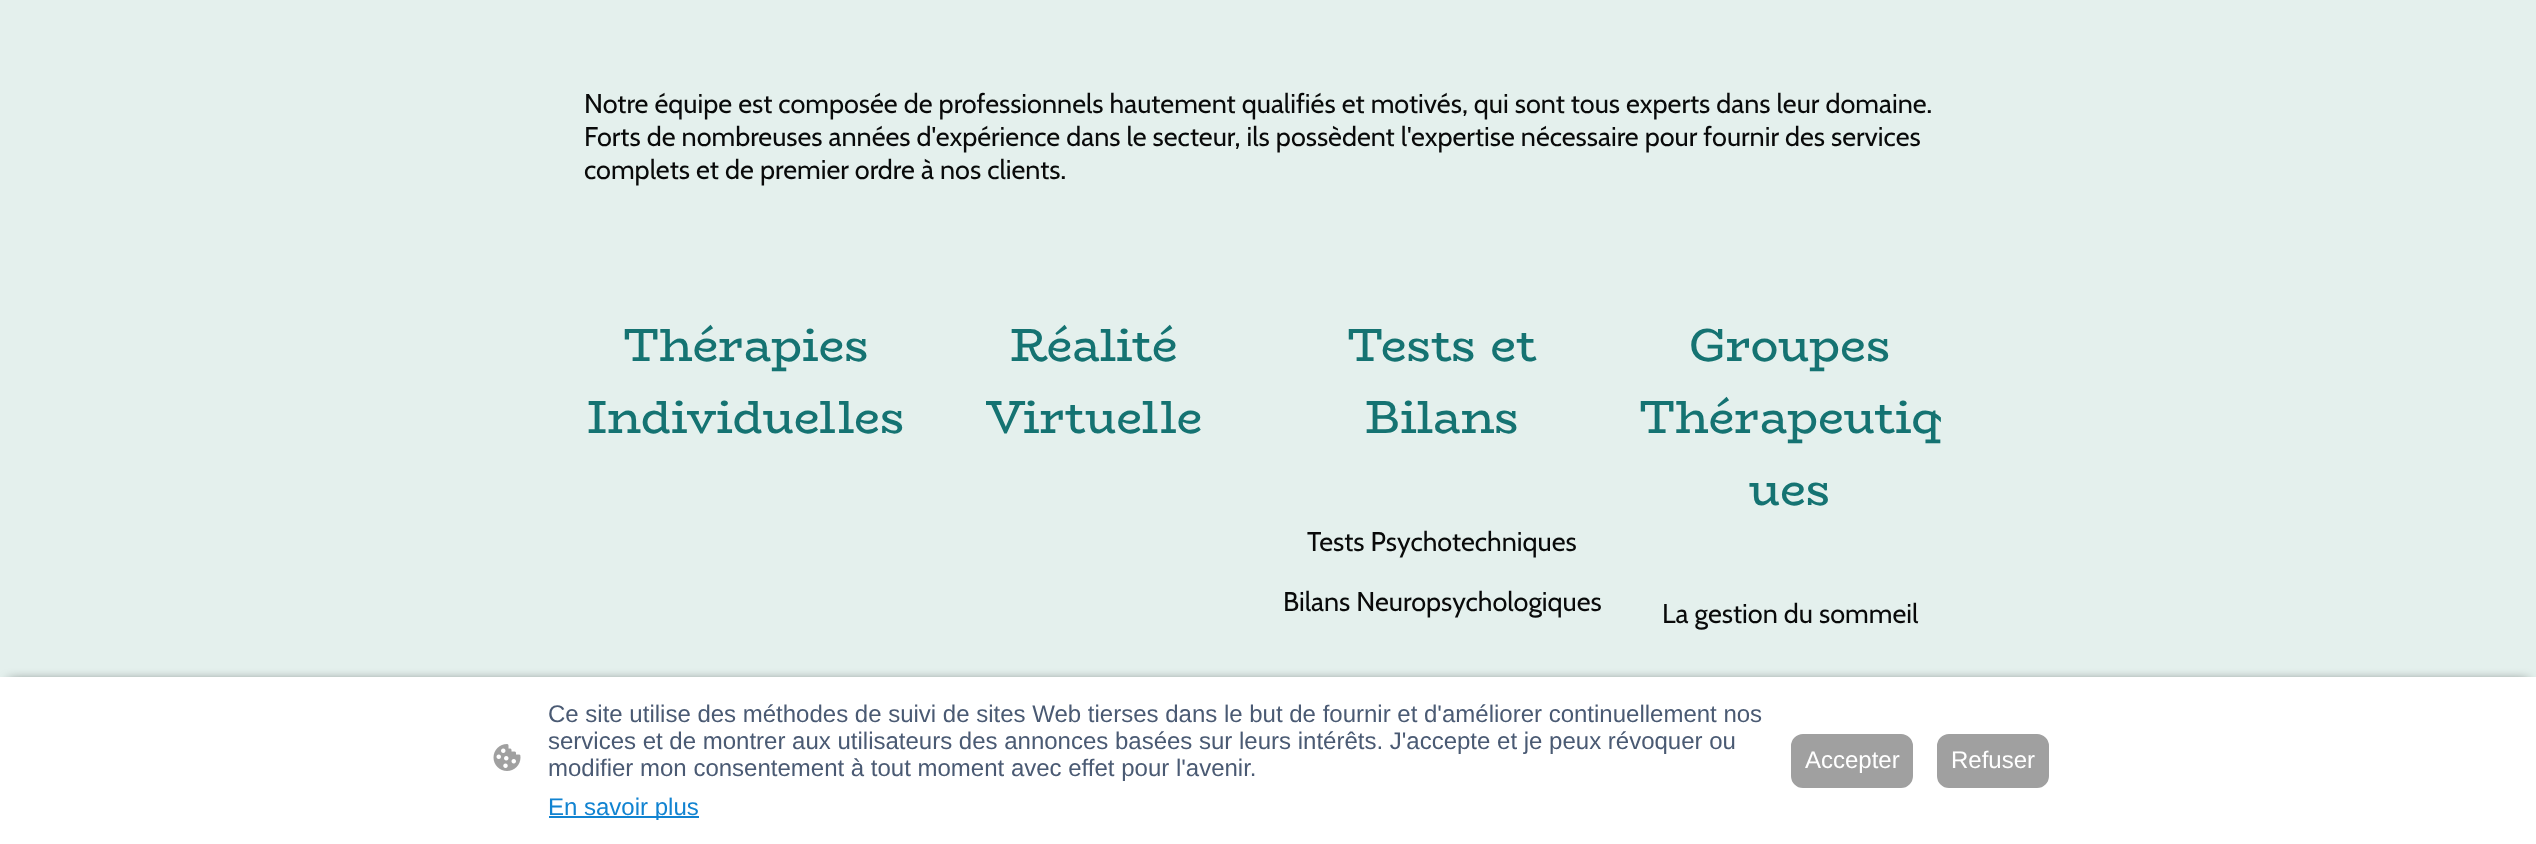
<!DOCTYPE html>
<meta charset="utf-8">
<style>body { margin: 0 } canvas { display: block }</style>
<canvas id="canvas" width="2536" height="844"></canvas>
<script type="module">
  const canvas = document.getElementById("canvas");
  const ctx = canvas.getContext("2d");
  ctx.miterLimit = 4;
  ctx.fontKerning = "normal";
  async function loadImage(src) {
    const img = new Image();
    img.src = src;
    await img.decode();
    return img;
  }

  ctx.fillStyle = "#e4f0ed";
  ctx.fillRect(0, 0, 2536, 844);
  ctx.font = "27px Cabin";
  ctx.fillStyle = "#090a0a";
  ctx.fillText("Notre équipe est composée de professionnels hautement qualifiés et motivés, qui sont tous experts dans leur domaine.", 584, 113);
  ctx.fillText("Forts de nombreuses années d'expérience dans le secteur, ils possèdent l'expertise nécessaire pour fournir des services", 584, 146);
  ctx.fillText("complets et de premier ordre à nos clients.", 584, 179);
  ctx.font = "46.5px BioRhyme";
  ctx.fillStyle = "#157372";
  ctx.fillText("Thérapies", 623, 361);
  ctx.fillText("Individuelles", 587, 433);
  ctx.fillText("Réalité", 1010, 361);
  ctx.fillText("Virtuelle", 986, 433);
  ctx.fillText("Tests et", 1347, 361);
  ctx.fillText("Bilans", 1365, 433);
  ctx.font = "27px Cabin";
  ctx.fillStyle = "#090a0a";
  ctx.fillText("Tests Psychotechniques", 1307, 551);
  ctx.fillText("Bilans Neuropsychologiques", 1283, 611);
  ctx.font = "46.5px BioRhyme";
  ctx.fillStyle = "#157372";
  ctx.fillText("Groupes", 1689, 361);
  ctx.fillText("Thérapeutiq", 1639, 433);
  ctx.fillText("ues", 1749, 505);
  ctx.font = "27px Cabin";
  ctx.fillStyle = "#090a0a";
  ctx.fillText("La gestion du sommeil", 1662, 623);
  ctx.fillStyle = "rgba(0, 0, 0, 0.63)";
  ctx.filter = "blur(6px)";
  ctx.beginPath();
  ctx.rect(9, 681, 2519, 150);
  ctx.fill();
  ctx.filter = "none";
  ctx.fillStyle = "#ffffff";
  ctx.fillRect(0, 677, 2536, 167);
  ctx.drawImage(await loadImage("img1.png"), 493, 744, 28, 27);
  ctx.font = "24px Liberation Sans";
  ctx.fillStyle = "#4a5a73";
  ctx.fillText("Ce site utilise des méthodes de suivi de sites Web tierses dans le but de fournir et d'améliorer continuellement nos", 548, 722);
  ctx.fillText("services et de montrer aux utilisateurs des annonces basées sur leurs intérêts. J'accepte et je peux révoquer ou", 548, 749);
  ctx.fillText("modifier mon consentement à tout moment avec effet pour l'avenir.", 548, 776);
  ctx.fillStyle = "#1183d1";
  ctx.fillRect(549, 816, 150, 2);
  ctx.fillText("En savoir plus", 548, 815);
  ctx.fillStyle = "#a0a0a0";
  ctx.beginPath();
  ctx.roundRect(1792, 735, 120, 52, 11);
  ctx.fill();
  ctx.strokeStyle = "#a0a0a0";
  ctx.lineWidth = 2;
  ctx.stroke();
  ctx.fillStyle = "#ffffff";
  ctx.fillText("Accepter", 1805, 768);
  ctx.fillStyle = "#a0a0a0";
  ctx.beginPath();
  ctx.roundRect(1938, 735, 110, 52, 11);
  ctx.fill();
  ctx.stroke();
  ctx.fillStyle = "#ffffff";
  ctx.fillText("Refuser", 1951, 768);
</script>
